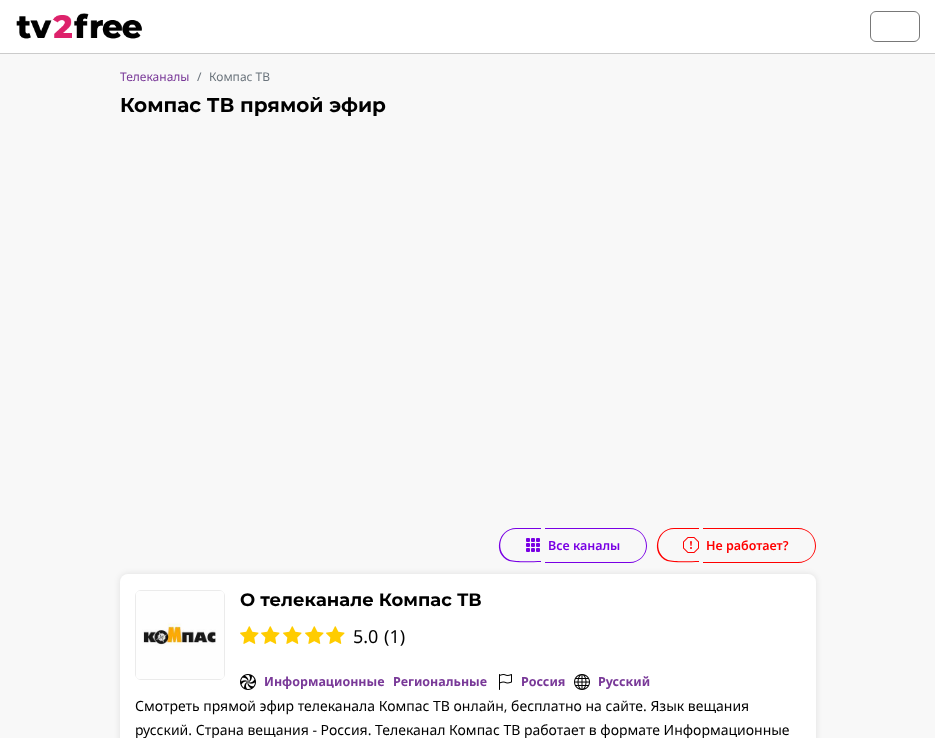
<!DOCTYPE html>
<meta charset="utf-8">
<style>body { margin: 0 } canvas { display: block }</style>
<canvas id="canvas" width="935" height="738"></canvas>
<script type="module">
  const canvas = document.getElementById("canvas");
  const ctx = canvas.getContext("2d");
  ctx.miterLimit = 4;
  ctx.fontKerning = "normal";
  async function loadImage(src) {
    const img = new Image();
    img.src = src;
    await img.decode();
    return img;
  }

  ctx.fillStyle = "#f8f8f8";
  ctx.fillRect(0, 0, 935, 738);
  ctx.fillStyle = "#ffffff";
  ctx.fillRect(0, 0, 935, 53);
  ctx.fillStyle = "#cbcbcb";
  ctx.fillRect(0, 53, 935, 1);
  ctx.drawImage(await loadImage("img1.png"), 16, 13, 126, 26);
  ctx.beginPath();
  ctx.roundRect(870.5, 11.5, 49, 30, 5.5);
  ctx.strokeStyle = "#787878";
  ctx.stroke();
  ctx.font = "12px Noto Sans";
  ctx.fillStyle = "#793998";
  ctx.fillText("Телеканалы", 120, 81);
  ctx.fillStyle = "#6c757d";
  ctx.fillText("/", 197, 81);
  ctx.fillText("Компас ТВ", 209, 81);
  ctx.font = "bold 20px Montserrat";
  ctx.fillStyle = "#000000";
  ctx.fillText("Компас ТВ прямой эфир", 120, 112);
  ctx.fillStyle = "#7900e4";
  ctx.beginPath();
  ctx.moveTo(516, 528);
  ctx.lineTo(541, 528);
  ctx.lineTo(541, 562);
  ctx.bezierCurveTo(533, 562, 516, 563, 509, 561);
  ctx.bezierCurveTo(492, 554, 498, 528, 516, 528);
  ctx.closePath();
  ctx.moveTo(516, 529);
  ctx.lineTo(541, 529);
  ctx.lineTo(541, 561);
  ctx.bezierCurveTo(534, 561, 516, 562, 510, 560);
  ctx.bezierCurveTo(494, 553, 499, 529, 516, 529);
  ctx.closePath();
  ctx.fill("evenodd");
  ctx.drawImage(await loadImage("img2.png"), 526, 538, 14, 14);
  ctx.beginPath();
  ctx.moveTo(545, 528);
  ctx.lineTo(630, 528);
  ctx.bezierCurveTo(639, 528, 647, 536, 647, 546);
  ctx.bezierCurveTo(647, 555, 639, 563, 630, 563);
  ctx.lineTo(545, 563);
  ctx.closePath();
  ctx.moveTo(545, 529);
  ctx.lineTo(630, 529);
  ctx.bezierCurveTo(639, 529, 646, 536, 646, 546);
  ctx.bezierCurveTo(646, 555, 639, 562, 630, 562);
  ctx.lineTo(545, 562);
  ctx.closePath();
  ctx.fill("evenodd");
  ctx.font = "600 12.5px Noto Sans";
  ctx.fillText("Все каналы", 548, 550);
  ctx.fillStyle = "#ff0000";
  ctx.beginPath();
  ctx.moveTo(674, 528);
  ctx.lineTo(699, 528);
  ctx.lineTo(699, 562);
  ctx.bezierCurveTo(691, 562, 674, 563, 667, 561);
  ctx.bezierCurveTo(650, 554, 656, 528, 674, 528);
  ctx.closePath();
  ctx.moveTo(674, 529);
  ctx.lineTo(699, 529);
  ctx.lineTo(699, 561);
  ctx.bezierCurveTo(692, 561, 674, 562, 668, 560);
  ctx.bezierCurveTo(652, 553, 657, 529, 674, 529);
  ctx.closePath();
  ctx.fill("evenodd");
  ctx.drawImage(await loadImage("img3.png"), 683, 537, 16, 16);
  ctx.beginPath();
  ctx.moveTo(703, 528);
  ctx.lineTo(798, 528);
  ctx.bezierCurveTo(808, 528, 816, 536, 816, 546);
  ctx.bezierCurveTo(816, 555, 808, 563, 798, 563);
  ctx.lineTo(703, 563);
  ctx.closePath();
  ctx.moveTo(703, 529);
  ctx.lineTo(798, 529);
  ctx.bezierCurveTo(808, 529, 815, 536, 815, 546);
  ctx.bezierCurveTo(815, 555, 808, 562, 798, 562);
  ctx.lineTo(703, 562);
  ctx.closePath();
  ctx.fill("evenodd");
  ctx.fillText("Не работает?", 706, 550);
  ctx.fillStyle = "rgba(0, 0, 0, 0.1)";
  ctx.filter = "blur(3px)";
  ctx.beginPath();
  ctx.roundRect(120, 574, 696, 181, 8);
  ctx.fill();
  ctx.filter = "none";
  ctx.fillStyle = "#ffffff";
  ctx.beginPath();
  ctx.roundRect(120, 574, 696, 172, 8);
  ctx.fill();
  ctx.beginPath();
  ctx.roundRect(135.5, 590.5, 89, 89, 5.5);
  ctx.strokeStyle = "#ebebeb";
  ctx.stroke();
  ctx.drawImage(await loadImage("img4.png"), 136, 591, 88, 88);
  ctx.font = "bold 18px Montserrat";
  ctx.fillStyle = "#000000";
  ctx.fillText("О телеканале Компас ТВ", 240, 606);
  ctx.drawImage(await loadImage("img5.png"), 240, 626, 19, 18);
  ctx.drawImage(await loadImage("img5.png"), 261, 626, 19, 18);
  ctx.drawImage(await loadImage("img5.png"), 283, 626, 19, 18);
  ctx.drawImage(await loadImage("img5.png"), 305, 626, 19, 18);
  ctx.drawImage(await loadImage("img5.png"), 326, 626, 19, 18);
  ctx.font = "18px Noto Sans";
  ctx.fillText("5.0", 353, 643);
  ctx.fillText("(1)", 384, 643);
  ctx.drawImage(await loadImage("img6.png"), 240, 674, 16, 16);
  ctx.font = "bold 12.5px Noto Sans";
  ctx.fillStyle = "#793998";
  ctx.fillText("Информационные", 264, 686);
  ctx.fillText("Региональные", 393, 686);
  ctx.drawImage(await loadImage("img7.png"), 499, 674, 13, 16);
  ctx.fillText("Россия", 521, 686);
  ctx.drawImage(await loadImage("img8.png"), 574, 674, 16, 16);
  ctx.fillText("Русский", 598, 686);
  ctx.font = "14px Noto Sans";
  ctx.fillStyle = "#000000";
  ctx.fillText("Смотреть прямой эфир телеканала Компас ТВ онлайн, бесплатно на сайте. Язык вещания", 135, 711);
  ctx.fillText("русский. Страна вещания - Россия. Телеканал Компас ТВ работает в формате Информационные", 135, 735);
</script>
